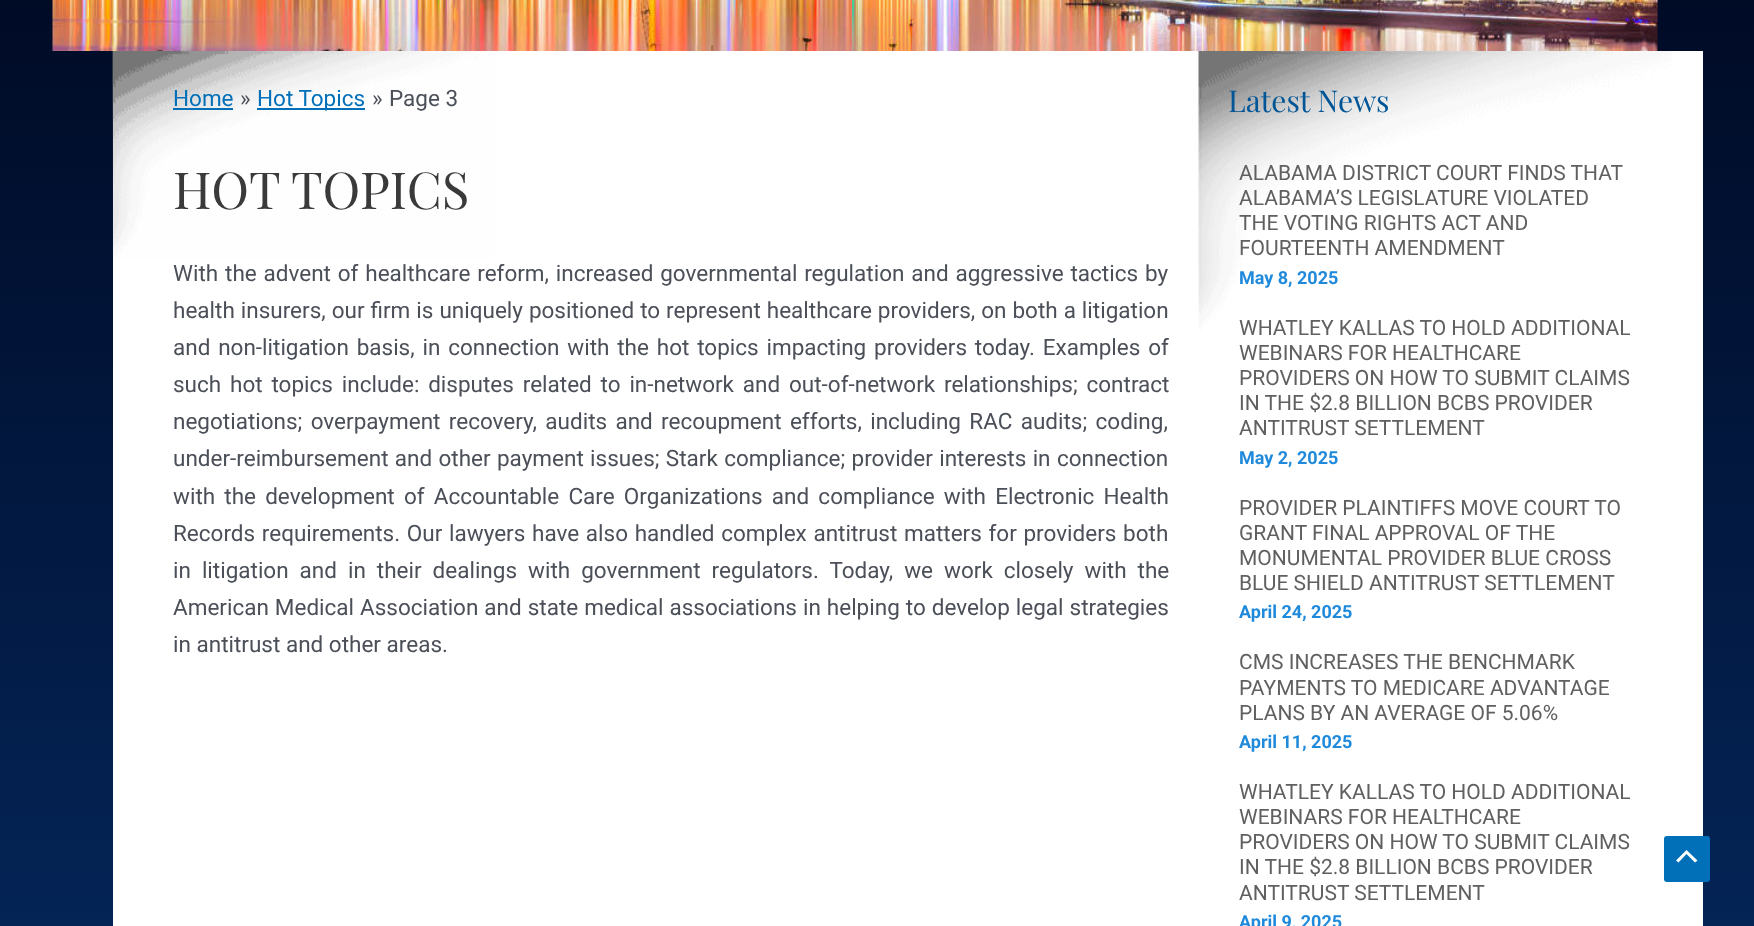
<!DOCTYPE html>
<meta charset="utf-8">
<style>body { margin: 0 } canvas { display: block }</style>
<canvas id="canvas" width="1754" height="926"></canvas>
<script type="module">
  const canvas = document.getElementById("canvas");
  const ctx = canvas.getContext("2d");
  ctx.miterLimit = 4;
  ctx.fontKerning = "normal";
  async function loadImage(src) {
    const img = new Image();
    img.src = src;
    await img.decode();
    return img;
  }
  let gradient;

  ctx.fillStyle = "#ffffff";
  ctx.fillRect(0, 0, 1754, 926);
  gradient = ctx.createLinearGradient(878, 0, 878, 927);
  gradient.addColorStop(0, "#000b26");
  gradient.addColorStop(1, "#042456");
  ctx.fillStyle = gradient;
  ctx.fillRect(0, 0, 1754, 926);
  ctx.drawImage(await loadImage("img1.png"), 52, 0, 1606, 51);
  ctx.fillStyle = "#ffffff";
  ctx.fillRect(113, 51, 1590, 875);
  ctx.drawImage(await loadImage("img2.png"), 112, 51, 383, 208);
  ctx.font = "22.5px Roboto";
  ctx.fillStyle = "#0170b9";
  ctx.fillText("Home", 173, 106);
  ctx.fillRect(173, 108, 60, 2);
  ctx.fillStyle = "#4b4f58";
  ctx.fillText("»", 240, 106);
  ctx.fillStyle = "#0170b9";
  ctx.fillRect(257, 108, 108, 2);
  ctx.fillText("Hot Topics", 257, 106);
  ctx.fillStyle = "#4b4f58";
  ctx.fillText("»", 372, 106);
  ctx.fillText("Page 3", 389, 106);
  ctx.font = "51px Playfair Display";
  ctx.fillStyle = "#3a3a3a";
  ctx.fillText("HOT TOPICS", 173, 209);
  ctx.wordSpacing = "1.25px";
  ctx.font = "22.5px Roboto";
  ctx.fillStyle = "#4b4f58";
  ctx.fillText("With the advent of healthcare reform, increased governmental regulation and aggressive tactics by", 173, 281);
  ctx.wordSpacing = "0.4px";
  ctx.fillText("health insurers, our firm is uniquely positioned to represent healthcare providers, on both a litigation", 173, 318);
  ctx.wordSpacing = "2.25px";
  ctx.fillText("and non-litigation basis, in connection with the hot topics impacting providers today. Examples of", 173, 355);
  ctx.wordSpacing = "3.25px";
  ctx.fillText("such hot topics include: disputes related to in-network and out-of-network relationships; contract", 173, 392);
  ctx.wordSpacing = "2.75px";
  ctx.fillText("negotiations; overpayment recovery, audits and recoupment efforts, including RAC audits; coding,", 173, 429);
  ctx.wordSpacing = "0.75px";
  ctx.fillText("under-reimbursement and other payment issues; Stark compliance; provider interests in connection", 173, 466);
  ctx.wordSpacing = "3.6px";
  ctx.fillText("with the development of Accountable Care Organizations and compliance with Electronic Health", 173, 504);
  ctx.wordSpacing = "1.1px";
  ctx.fillText("Records requirements. Our lawyers have also handled complex antitrust matters for providers both", 173, 541);
  ctx.wordSpacing = "5.4px";
  ctx.fillText("in litigation and in their dealings with government regulators. Today, we work closely with the", 173, 578);
  ctx.wordSpacing = "0.4px";
  ctx.fillText("American Medical Association and state medical associations in helping to develop legal strategies", 173, 615);
  ctx.wordSpacing = "0px";
  ctx.fillText("in antitrust and other areas.", 173, 652);
  ctx.drawImage(await loadImage("img3.png"), 1198, 51, 474, 279);
  ctx.font = "30px Playfair Display";
  ctx.fillStyle = "#005596";
  ctx.fillText("Latest News", 1228, 112);
  ctx.font = "21px Roboto";
  ctx.fillStyle = "#606060";
  ctx.fillText("ALABAMA DISTRICT COURT FINDS THAT", 1239, 180);
  ctx.fillText("ALABAMA’S LEGISLATURE VIOLATED", 1239, 205);
  ctx.fillText("THE VOTING RIGHTS ACT AND", 1239, 230);
  ctx.fillText("FOURTEENTH AMENDMENT", 1239, 255);
  ctx.font = "bold 18px Roboto";
  ctx.fillStyle = "#1f8adb";
  ctx.fillText("May 8, 2025", 1239, 284);
  ctx.font = "21px Roboto";
  ctx.fillStyle = "#606060";
  ctx.fillText("WHATLEY KALLAS TO HOLD ADDITIONAL", 1239, 335);
  ctx.fillText("WEBINARS FOR HEALTHCARE", 1239, 360);
  ctx.fillText("PROVIDERS ON HOW TO SUBMIT CLAIMS", 1239, 385);
  ctx.fillText("IN THE $2.8 BILLION BCBS PROVIDER", 1239, 410);
  ctx.fillText("ANTITRUST SETTLEMENT", 1239, 435);
  ctx.font = "bold 18px Roboto";
  ctx.fillStyle = "#1f8adb";
  ctx.fillText("May 2, 2025", 1239, 464);
  ctx.font = "21px Roboto";
  ctx.fillStyle = "#606060";
  ctx.fillText("PROVIDER PLAINTIFFS MOVE COURT TO", 1239, 515);
  ctx.fillText("GRANT FINAL APPROVAL OF THE", 1239, 540);
  ctx.fillText("MONUMENTAL PROVIDER BLUE CROSS", 1239, 565);
  ctx.fillText("BLUE SHIELD ANTITRUST SETTLEMENT", 1239, 590);
  ctx.font = "bold 18px Roboto";
  ctx.fillStyle = "#1f8adb";
  ctx.fillText("April 24, 2025", 1239, 618);
  ctx.font = "21px Roboto";
  ctx.fillStyle = "#606060";
  ctx.fillText("CMS INCREASES THE BENCHMARK", 1239, 669);
  ctx.fillText("PAYMENTS TO MEDICARE ADVANTAGE", 1239, 695);
  ctx.fillText("PLANS BY AN AVERAGE OF 5.06%", 1239, 720);
  ctx.font = "bold 18px Roboto";
  ctx.fillStyle = "#1f8adb";
  ctx.fillText("April 11, 2025", 1239, 748);
  ctx.font = "21px Roboto";
  ctx.fillStyle = "#606060";
  ctx.fillText("WHATLEY KALLAS TO HOLD ADDITIONAL", 1239, 799);
  ctx.fillText("WEBINARS FOR HEALTHCARE", 1239, 824);
  ctx.fillText("PROVIDERS ON HOW TO SUBMIT CLAIMS", 1239, 849);
  ctx.fillText("IN THE $2.8 BILLION BCBS PROVIDER", 1239, 874);
  ctx.fillText("ANTITRUST SETTLEMENT", 1239, 900);
  ctx.font = "bold 18px Roboto";
  ctx.fillStyle = "#1f8adb";
  ctx.fillText("April 9, 2025", 1239, 928);
  ctx.fillStyle = "#0170b9";
  ctx.beginPath();
  ctx.roundRect(1664, 836, 46, 46, 3);
  ctx.fill();
  ctx.fillStyle = "#ffffff";
  ctx.beginPath();
  ctx.moveTo(1697.5, 860.5);
  ctx.lineTo(1686.5, 850);
  ctx.lineTo(1676, 860.5);
  ctx.lineTo(1678.5, 862.5);
  ctx.lineTo(1686.5, 854);
  ctx.lineTo(1695, 862.5);
  ctx.closePath();
  ctx.fill();
</script>
